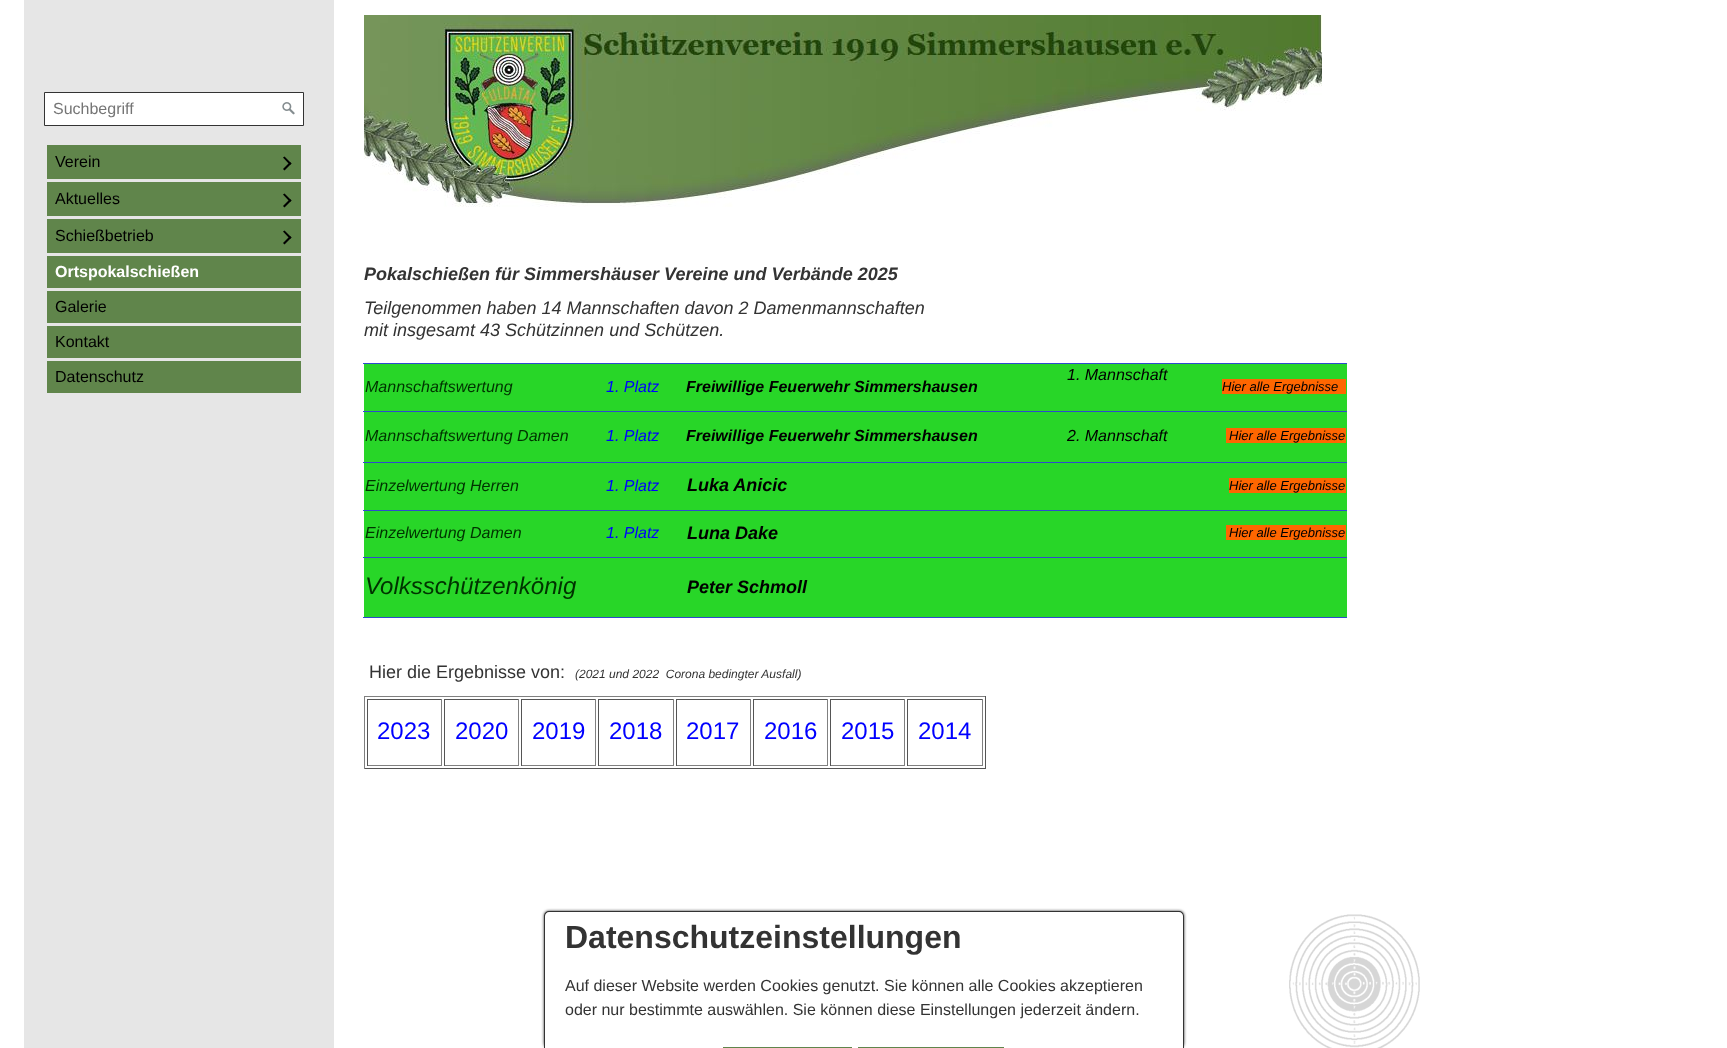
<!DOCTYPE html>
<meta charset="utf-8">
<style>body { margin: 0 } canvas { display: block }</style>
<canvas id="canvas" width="1727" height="1048"></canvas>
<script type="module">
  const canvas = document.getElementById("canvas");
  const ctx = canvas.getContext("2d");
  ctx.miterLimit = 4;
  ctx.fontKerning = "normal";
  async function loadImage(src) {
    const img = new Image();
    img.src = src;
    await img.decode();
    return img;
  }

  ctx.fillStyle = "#ffffff";
  ctx.fillRect(0, 0, 1727, 1048);
  ctx.fillStyle = "#e6e6e6";
  ctx.fillRect(24, 0, 310, 1048);
  ctx.fillStyle = "#ffffff";
  ctx.beginPath();
  ctx.rect(44.5, 92.5, 259, 33);
  ctx.fill();
  ctx.strokeStyle = "#333333";
  ctx.stroke();
  ctx.font = "16px Liberation Sans";
  ctx.fillStyle = "#757575";
  ctx.fillText("Suchbegriff", 53, 114);
  ctx.drawImage(await loadImage("img1.png"), 282, 102, 13, 13);
  ctx.fillStyle = "#60854b";
  ctx.fillRect(47, 145, 254, 34);
  ctx.fillStyle = "#000000";
  ctx.fillText("Verein", 55, 167);
  ctx.beginPath();
  ctx.moveTo(284.5, 156.5);
  ctx.lineTo(291.5, 163.5);
  ctx.lineTo(290, 165);
  ctx.lineTo(283, 157.5);
  ctx.closePath();
  ctx.fill();
  ctx.beginPath();
  ctx.moveTo(290, 162);
  ctx.lineTo(291.5, 163.5);
  ctx.lineTo(284.5, 170.5);
  ctx.lineTo(283, 169);
  ctx.closePath();
  ctx.fill();
  ctx.fillStyle = "#60854b";
  ctx.fillRect(47, 182, 254, 34);
  ctx.fillStyle = "#000000";
  ctx.fillText("Aktuelles", 55, 204);
  ctx.beginPath();
  ctx.moveTo(284.5, 193.5);
  ctx.lineTo(291.5, 200.5);
  ctx.lineTo(290, 202);
  ctx.lineTo(283, 194.5);
  ctx.closePath();
  ctx.fill();
  ctx.beginPath();
  ctx.moveTo(290, 199);
  ctx.lineTo(291.5, 200.5);
  ctx.lineTo(284.5, 207.5);
  ctx.lineTo(283, 206);
  ctx.closePath();
  ctx.fill();
  ctx.fillStyle = "#60854b";
  ctx.fillRect(47, 219, 254, 34);
  ctx.fillStyle = "#000000";
  ctx.fillText("Schießbetrieb", 55, 241);
  ctx.beginPath();
  ctx.moveTo(284.5, 230.5);
  ctx.lineTo(291.5, 237.5);
  ctx.lineTo(290, 239);
  ctx.lineTo(283, 231.5);
  ctx.closePath();
  ctx.fill();
  ctx.beginPath();
  ctx.moveTo(290, 236);
  ctx.lineTo(291.5, 237.5);
  ctx.lineTo(284.5, 244.5);
  ctx.lineTo(283, 243);
  ctx.closePath();
  ctx.fill();
  ctx.fillStyle = "#60854b";
  ctx.fillRect(47, 256, 254, 32);
  ctx.font = "bold 16px Liberation Sans";
  ctx.fillStyle = "#ffffff";
  ctx.fillText("Ortspokalschießen", 55, 277);
  ctx.fillStyle = "#60854b";
  ctx.fillRect(47, 291, 254, 32);
  ctx.font = "16px Liberation Sans";
  ctx.fillStyle = "#000000";
  ctx.fillText("Galerie", 55, 312);
  ctx.fillStyle = "#60854b";
  ctx.fillRect(47, 326, 254, 32);
  ctx.fillStyle = "#000000";
  ctx.fillText("Kontakt", 55, 347);
  ctx.fillStyle = "#60854b";
  ctx.fillRect(47, 361, 254, 32);
  ctx.fillStyle = "#000000";
  ctx.fillText("Datenschutz", 55, 382);
  ctx.drawImage(await loadImage("img2.png"), 364, 15, 958, 192);
  ctx.font = "italic bold 18px Liberation Sans";
  ctx.fillStyle = "#333333";
  ctx.fillText("Pokalschießen für Simmershäuser Vereine und Verbände 2025", 364, 280);
  ctx.font = "italic 18px Liberation Sans";
  ctx.fillText("Teilgenommen haben 14 Mannschaften davon 2 Damenmannschaften", 364, 314);
  ctx.fillText("mit insgesamt 43 Schützinnen und Schützen.", 364, 336);
  ctx.fillStyle = "#28d628";
  ctx.fillRect(364, 364, 983, 253);
  ctx.font = "italic 16px Liberation Sans";
  ctx.fillStyle = "#000000";
  ctx.fillText("1. Mannschaft", 1067, 380);
  ctx.fillStyle = "#003300";
  ctx.fillText("Mannschaftswertung", 365, 392);
  ctx.fillStyle = "#0000ff";
  ctx.fillText("1. Platz", 606, 392);
  ctx.font = "italic bold 16px Liberation Sans";
  ctx.fillStyle = "#000000";
  ctx.fillText("Freiwillige Feuerwehr Simmershausen", 686, 392);
  ctx.fillStyle = "#2f49cf";
  ctx.fillRect(363, 363, 984, 1);
  ctx.fillStyle = "#ff6600";
  ctx.fillRect(1222, 379, 124, 15);
  ctx.font = "italic 13px Liberation Sans";
  ctx.fillStyle = "#000000";
  ctx.fillText("Hier alle Ergebnisse", 1222, 391);
  ctx.font = "italic 16px Liberation Sans";
  ctx.fillStyle = "#003300";
  ctx.fillText("Mannschaftswertung Damen", 365, 441);
  ctx.fillStyle = "#0000ff";
  ctx.fillText("1. Platz", 606, 441);
  ctx.font = "italic bold 16px Liberation Sans";
  ctx.fillStyle = "#000000";
  ctx.fillText("Freiwillige Feuerwehr Simmershausen", 686, 441);
  ctx.font = "italic 16px Liberation Sans";
  ctx.fillText("2. Mannschaft", 1067, 441);
  ctx.fillStyle = "#2f49cf";
  ctx.fillRect(363, 411, 984, 1);
  ctx.fillStyle = "#ff6600";
  ctx.fillRect(1226, 428, 120, 15);
  ctx.font = "italic 13px Liberation Sans";
  ctx.fillStyle = "#000000";
  ctx.fillText("Hier alle Ergebnisse", 1229, 440);
  ctx.font = "italic 16px Liberation Sans";
  ctx.fillStyle = "#003300";
  ctx.fillText("Einzelwertung Herren", 365, 491);
  ctx.fillStyle = "#0000ff";
  ctx.fillText("1. Platz", 606, 491);
  ctx.font = "italic bold 18px Liberation Sans";
  ctx.fillStyle = "#000000";
  ctx.fillText("Luka Anicic", 687, 491);
  ctx.fillStyle = "#2f49cf";
  ctx.fillRect(363, 462, 984, 1);
  ctx.fillStyle = "#ff6600";
  ctx.fillRect(1229, 478, 117, 15);
  ctx.font = "italic 13px Liberation Sans";
  ctx.fillStyle = "#000000";
  ctx.fillText("Hier alle Ergebnisse", 1229, 490);
  ctx.font = "italic 16px Liberation Sans";
  ctx.fillStyle = "#003300";
  ctx.fillText("Einzelwertung Damen", 365, 538);
  ctx.fillStyle = "#0000ff";
  ctx.fillText("1. Platz", 606, 538);
  ctx.font = "italic bold 18px Liberation Sans";
  ctx.fillStyle = "#000000";
  ctx.fillText("Luna Dake", 687, 539);
  ctx.fillStyle = "#2f49cf";
  ctx.fillRect(363, 510, 984, 1);
  ctx.fillStyle = "#ff6600";
  ctx.fillRect(1226, 525, 120, 15);
  ctx.font = "italic 13px Liberation Sans";
  ctx.fillStyle = "#000000";
  ctx.fillText("Hier alle Ergebnisse", 1229, 537);
  ctx.fillStyle = "#2f49cf";
  ctx.fillRect(363, 557, 984, 1);
  ctx.fillRect(363, 617, 984, 1);
  ctx.font = "italic 24px Liberation Sans";
  ctx.fillStyle = "#003300";
  ctx.fillText("Volksschützenkönig", 365, 594);
  ctx.font = "italic bold 18px Liberation Sans";
  ctx.fillStyle = "#000000";
  ctx.fillText("Peter Schmoll", 687, 593);
  ctx.font = "18px Liberation Sans";
  ctx.fillStyle = "#333333";
  ctx.fillText("Hier die Ergebnisse von:", 369, 678);
  ctx.font = "italic 12px Liberation Sans";
  ctx.fillText("(2021 und 2022  Corona bedingter Ausfall)", 575, 678);
  ctx.fillStyle = "#808080";
  ctx.fillRect(364, 696, 622, 1);
  ctx.fillStyle = "#555555";
  ctx.fillRect(985, 696, 1, 73);
  ctx.fillRect(364, 768, 622, 1);
  ctx.fillStyle = "#808080";
  ctx.fillRect(364, 696, 1, 73);
  ctx.fillStyle = "#555555";
  ctx.fillRect(367, 699, 75, 1);
  ctx.fillStyle = "#808080";
  ctx.fillRect(441, 699, 1, 67);
  ctx.fillRect(367, 765, 75, 1);
  ctx.fillStyle = "#555555";
  ctx.fillRect(367, 699, 1, 67);
  ctx.font = "24px Liberation Sans";
  ctx.fillStyle = "#0000ff";
  ctx.fillText("2023", 377, 739);
  ctx.fillStyle = "#555555";
  ctx.fillRect(444, 699, 75, 1);
  ctx.fillStyle = "#808080";
  ctx.fillRect(518, 699, 1, 67);
  ctx.fillRect(444, 765, 75, 1);
  ctx.fillStyle = "#555555";
  ctx.fillRect(444, 699, 1, 67);
  ctx.fillStyle = "#0000ff";
  ctx.fillText("2020", 455, 739);
  ctx.fillStyle = "#555555";
  ctx.fillRect(521, 699, 75, 1);
  ctx.fillStyle = "#808080";
  ctx.fillRect(595, 699, 1, 67);
  ctx.fillRect(521, 765, 75, 1);
  ctx.fillStyle = "#555555";
  ctx.fillRect(521, 699, 1, 67);
  ctx.fillStyle = "#0000ff";
  ctx.fillText("2019", 532, 739);
  ctx.fillStyle = "#555555";
  ctx.fillRect(598, 699, 76, 1);
  ctx.fillStyle = "#808080";
  ctx.fillRect(673, 699, 1, 67);
  ctx.fillRect(598, 765, 76, 1);
  ctx.fillStyle = "#555555";
  ctx.fillRect(598, 699, 1, 67);
  ctx.fillStyle = "#0000ff";
  ctx.fillText("2018", 609, 739);
  ctx.fillStyle = "#555555";
  ctx.fillRect(676, 699, 75, 1);
  ctx.fillStyle = "#808080";
  ctx.fillRect(750, 699, 1, 67);
  ctx.fillRect(676, 765, 75, 1);
  ctx.fillStyle = "#555555";
  ctx.fillRect(676, 699, 1, 67);
  ctx.fillStyle = "#0000ff";
  ctx.fillText("2017", 686, 739);
  ctx.fillStyle = "#555555";
  ctx.fillRect(753, 699, 75, 1);
  ctx.fillStyle = "#808080";
  ctx.fillRect(827, 699, 1, 67);
  ctx.fillRect(753, 765, 75, 1);
  ctx.fillStyle = "#555555";
  ctx.fillRect(753, 699, 1, 67);
  ctx.fillStyle = "#0000ff";
  ctx.fillText("2016", 764, 739);
  ctx.fillStyle = "#555555";
  ctx.fillRect(830, 699, 75, 1);
  ctx.fillStyle = "#808080";
  ctx.fillRect(904, 699, 1, 67);
  ctx.fillRect(830, 765, 75, 1);
  ctx.fillStyle = "#555555";
  ctx.fillRect(830, 699, 1, 67);
  ctx.fillStyle = "#0000ff";
  ctx.fillText("2015", 841, 739);
  ctx.fillStyle = "#555555";
  ctx.fillRect(907, 699, 76, 1);
  ctx.fillStyle = "#808080";
  ctx.fillRect(982, 699, 1, 67);
  ctx.fillRect(907, 765, 76, 1);
  ctx.fillStyle = "#555555";
  ctx.fillRect(907, 699, 1, 67);
  ctx.fillStyle = "#0000ff";
  ctx.fillText("2014", 918, 739);
  ctx.drawImage(await loadImage("img3.png"), 1289, 914, 131, 134);
  ctx.save();
  ctx.beginPath();
  ctx.moveTo(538, 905);
  ctx.lineTo(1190, 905);
  ctx.lineTo(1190, 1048);
  ctx.lineTo(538, 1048);
  ctx.closePath();
  ctx.moveTo(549, 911);
  ctx.lineTo(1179, 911);
  ctx.bezierCurveTo(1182, 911, 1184, 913, 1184, 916);
  ctx.lineTo(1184, 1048);
  ctx.lineTo(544, 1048);
  ctx.lineTo(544, 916);
  ctx.bezierCurveTo(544, 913, 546, 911, 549, 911);
  ctx.closePath();
  ctx.clip("evenodd");
  ctx.fillStyle = "rgba(0, 0, 0, 0.8)";
  ctx.filter = "blur(1.5px)";
  ctx.beginPath();
  ctx.roundRect(544, 911, 640, 137, 5);
  ctx.fill();
  ctx.filter = "none";
  ctx.restore();
  ctx.fillStyle = "rgba(255, 255, 255, 0.9)";
  ctx.beginPath();
  ctx.roundRect(544, 911, 640, 137, [5, 5, 0, 0]);
  ctx.fill();
  ctx.fillStyle = "#333333";
  ctx.beginPath();
  ctx.moveTo(549, 911);
  ctx.lineTo(1179, 911);
  ctx.bezierCurveTo(1182, 911, 1184, 913, 1184, 916);
  ctx.lineTo(1184, 1048);
  ctx.lineTo(544, 1048);
  ctx.lineTo(544, 916);
  ctx.bezierCurveTo(544, 913, 546, 911, 549, 911);
  ctx.closePath();
  ctx.moveTo(549, 912);
  ctx.lineTo(1179, 912);
  ctx.bezierCurveTo(1181, 912, 1183, 914, 1183, 916);
  ctx.lineTo(1183, 1048);
  ctx.lineTo(545, 1048);
  ctx.lineTo(545, 916);
  ctx.bezierCurveTo(545, 914, 547, 912, 549, 912);
  ctx.closePath();
  ctx.fill("evenodd");
  ctx.font = "bold 32px Liberation Sans";
  ctx.fillText("Datenschutzeinstellungen", 565, 948);
  ctx.font = "16px Liberation Sans";
  ctx.fillText("Auf dieser Website werden Cookies genutzt. Sie können alle Cookies akzeptieren", 565, 991);
  ctx.fillText("oder nur bestimmte auswählen. Sie können diese Einstellungen jederzeit ändern.", 565, 1015);
  ctx.fillStyle = "#60854b";
  ctx.fillRect(722, 1047, 131, 1);
  ctx.fillStyle = "#ffffff";
  ctx.beginPath();
  ctx.moveTo(722, 1046);
  ctx.lineTo(722, 1048);
  ctx.lineTo(723, 1048);
  ctx.lineTo(723, 1047);
  ctx.lineTo(852, 1047);
  ctx.lineTo(852, 1048);
  ctx.lineTo(853, 1048);
  ctx.lineTo(853, 1046);
  ctx.closePath();
  ctx.fill();
  ctx.fillStyle = "#60854b";
  ctx.fillRect(857, 1047, 148, 1);
  ctx.fillStyle = "#ffffff";
  ctx.beginPath();
  ctx.moveTo(857, 1046);
  ctx.lineTo(857, 1048);
  ctx.lineTo(858, 1048);
  ctx.lineTo(858, 1047);
  ctx.lineTo(1004, 1047);
  ctx.lineTo(1004, 1048);
  ctx.lineTo(1005, 1048);
  ctx.lineTo(1005, 1046);
  ctx.closePath();
  ctx.fill();
</script>
